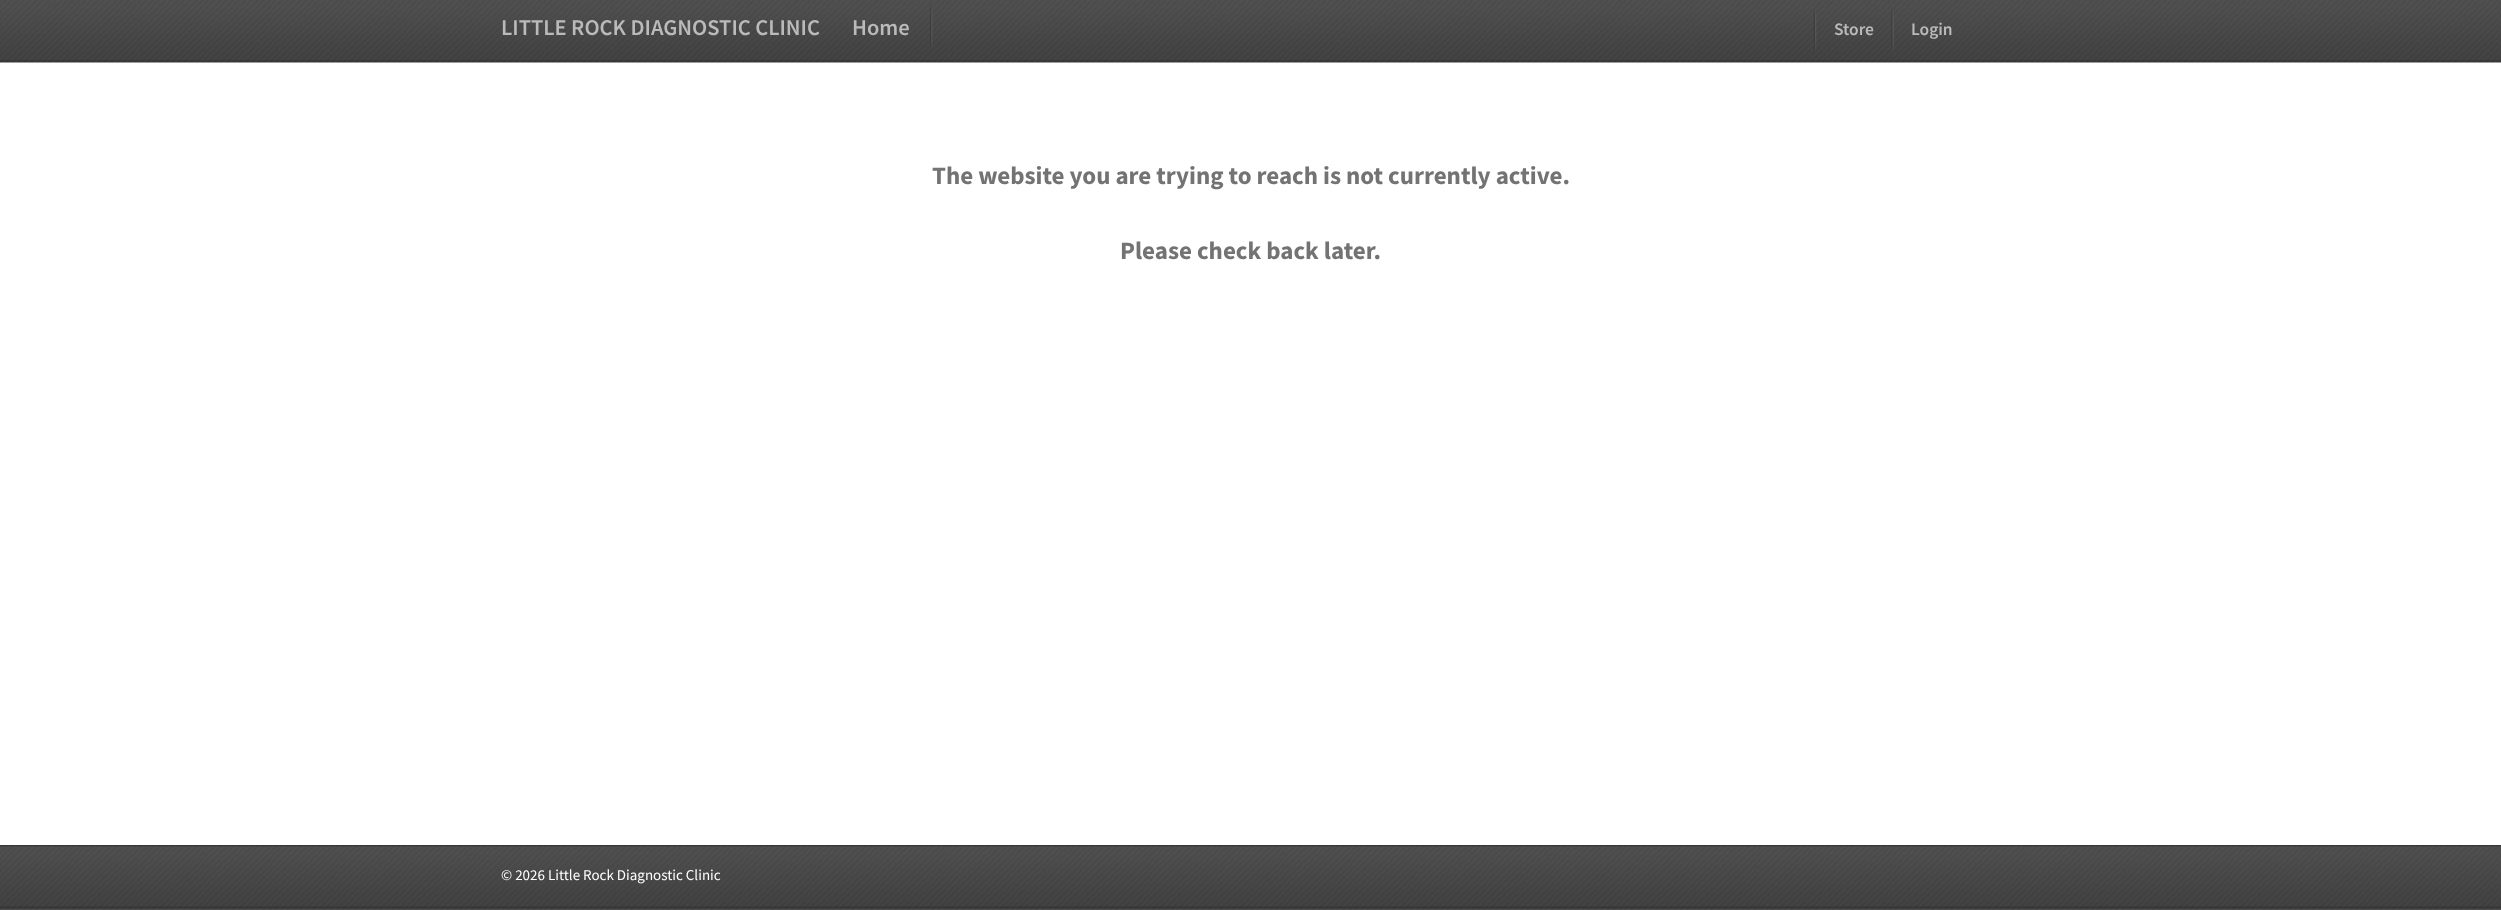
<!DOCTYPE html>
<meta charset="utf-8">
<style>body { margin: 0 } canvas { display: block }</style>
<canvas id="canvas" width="2501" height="910"></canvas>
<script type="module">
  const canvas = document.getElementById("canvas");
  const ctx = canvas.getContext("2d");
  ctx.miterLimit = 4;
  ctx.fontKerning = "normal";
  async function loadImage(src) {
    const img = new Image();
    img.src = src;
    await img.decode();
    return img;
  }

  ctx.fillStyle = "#ffffff";
  ctx.fillRect(0, 0, 2501, 910);
  ctx.drawImage(await loadImage("img1.png"), 0, 0, 2501, 63);
  ctx.font = "600 22.5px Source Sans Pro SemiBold";
  ctx.fillStyle = "#bababa";
  ctx.fillText("LITTLE ROCK DIAGNOSTIC CLINIC", 501, 35);
  ctx.fillText("Home", 852, 35);
  ctx.drawImage(await loadImage("img2.png"), 930, 4, 3, 43);
  ctx.drawImage(await loadImage("img3.png"), 1813, 9, 4, 43);
  ctx.font = "600 17.5px Source Sans Pro SemiBold";
  ctx.fillText("Store", 1834, 35);
  ctx.drawImage(await loadImage("img4.png"), 1891, 8, 3, 43);
  ctx.fillText("Login", 1911, 35);
  ctx.font = "bold 25px Source Sans Pro";
  ctx.fillStyle = "#737373";
  ctx.fillText("The website you are trying to reach is not currently active.", 932, 184);
  ctx.fillText("Please check back later.", 1120, 259);
  ctx.drawImage(await loadImage("img5.png"), 0, 845, 2501, 65);
  ctx.font = "15px Source Sans Pro";
  ctx.fillStyle = "#ffffff";
  ctx.fillText("© 2026 Little Rock Diagnostic Clinic", 501, 880);
</script>
